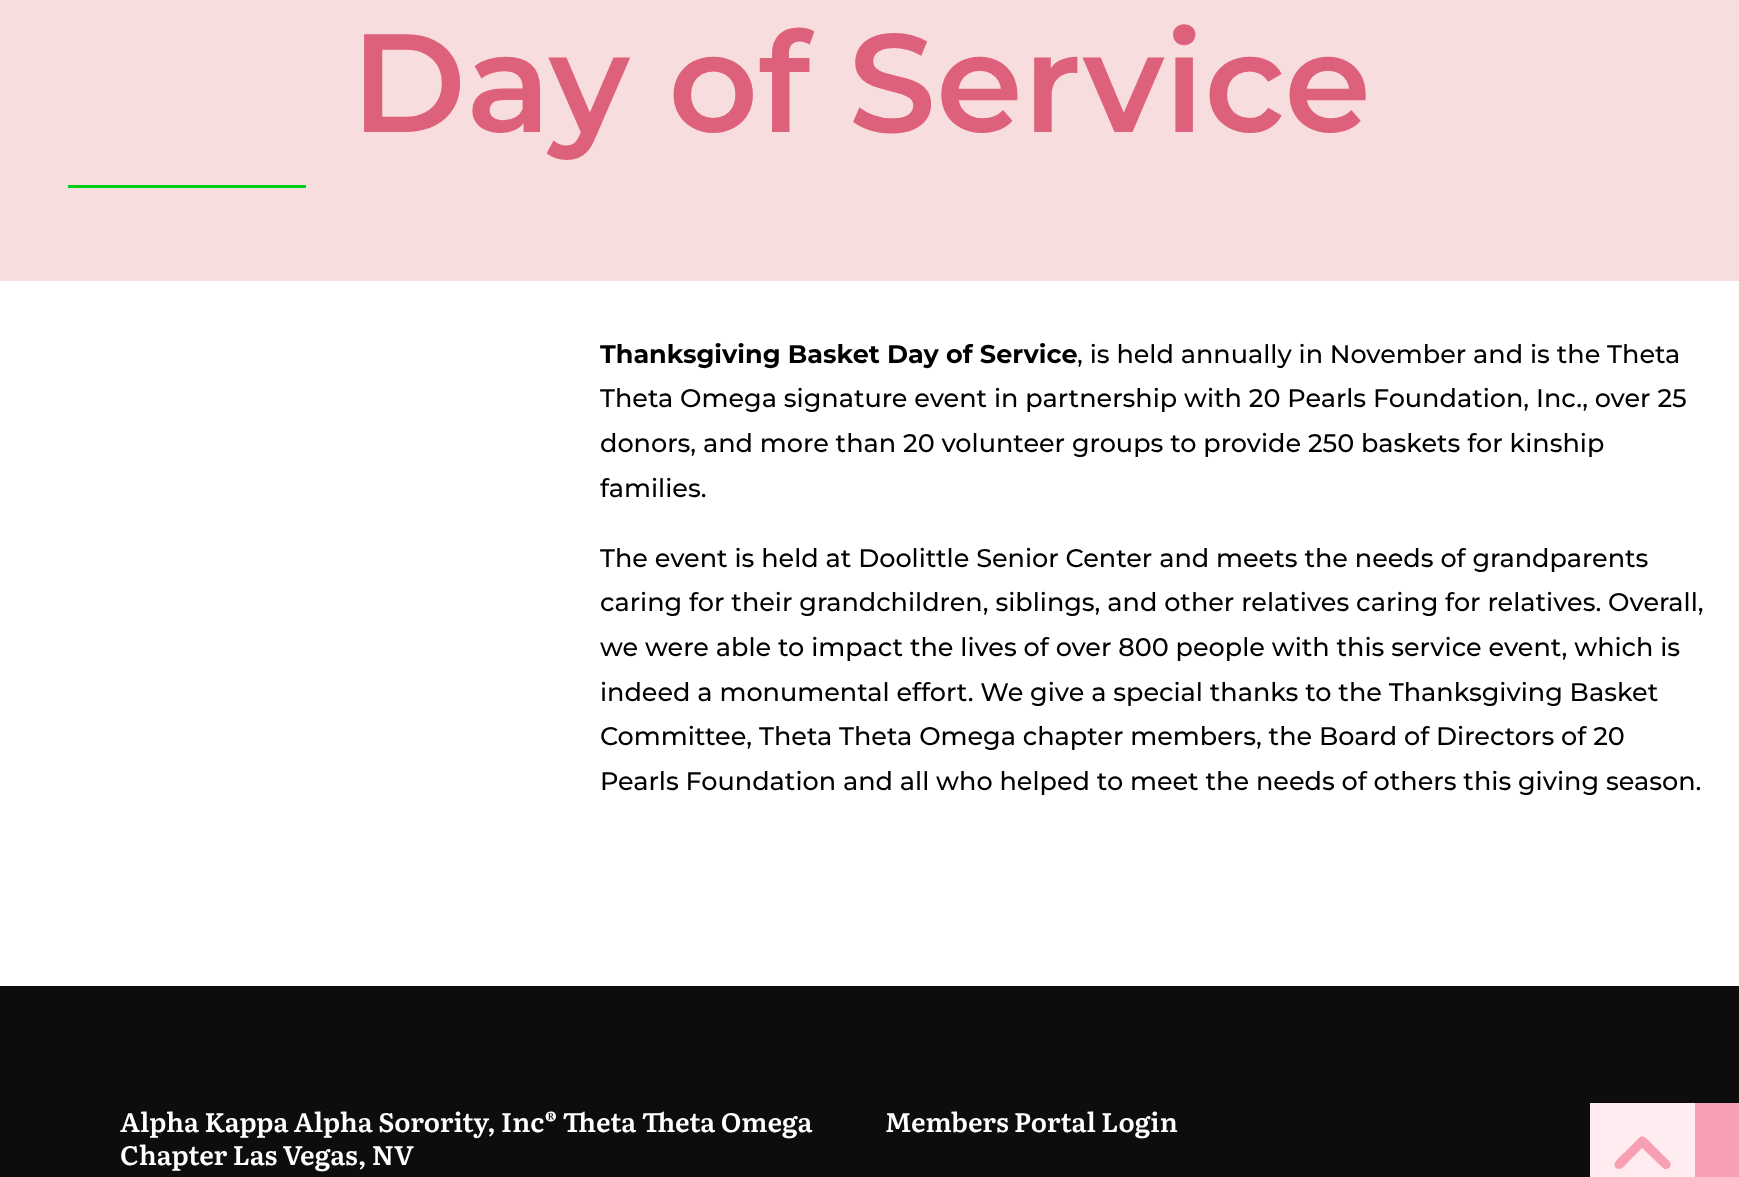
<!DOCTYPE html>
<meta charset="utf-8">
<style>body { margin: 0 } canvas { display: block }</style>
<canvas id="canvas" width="1739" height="1177"></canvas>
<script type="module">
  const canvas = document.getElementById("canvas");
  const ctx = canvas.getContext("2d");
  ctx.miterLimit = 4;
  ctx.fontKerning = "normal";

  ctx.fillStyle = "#ffffff";
  ctx.fillRect(0, 0, 1739, 1177);
  ctx.fillStyle = "#f7dddd";
  ctx.fillRect(0, 0, 1739, 281);
  ctx.font = "600 139.5px Montserrat";
  ctx.fillStyle = "#de617c";
  ctx.fillText("Day of Service", 351, 132);
  ctx.fillStyle = "#00ce1b";
  ctx.fillRect(68, 185, 238, 3);
  ctx.font = "bold 25.5px Montserrat";
  ctx.fillStyle = "#000000";
  ctx.fillText("Thanksgiving Basket Day of Service", 600, 363);
  ctx.font = "500 25.5px Montserrat";
  ctx.fillText(", is held annually in November and is the Theta", 1077, 363);
  ctx.fillText("Theta Omega signature event in partnership with 20 Pearls Foundation, Inc., over 25", 600, 407);
  ctx.fillText("donors, and more than 20 volunteer groups to provide 250 baskets for kinship", 600, 452);
  ctx.fillText("families.", 600, 497);
  ctx.fillText("The event is held at Doolittle Senior Center and meets the needs of grandparents", 600, 567);
  ctx.fillText("caring for their grandchildren, siblings, and other relatives caring for relatives. Overall,", 600, 611);
  ctx.fillText("we were able to impact the lives of over 800 people with this service event, which is", 600, 656);
  ctx.fillText("indeed a monumental effort. We give a special thanks to the Thanksgiving Basket", 600, 701);
  ctx.fillText("Committee, Theta Theta Omega chapter members, the Board of Directors of 20", 600, 745);
  ctx.fillText("Pearls Foundation and all who helped to meet the needs of others this giving season.", 600, 790);
  ctx.fillStyle = "#0d0d0d";
  ctx.fillRect(0, 986, 1739, 191);
  ctx.font = "600 26.7px Literata";
  ctx.fillStyle = "#ffffff";
  ctx.fillText("Alpha Kappa Alpha Sorority, Inc® Theta Theta Omega", 120, 1132);
  ctx.fillText("Chapter Las Vegas, NV", 120, 1165);
  ctx.fillText("Members Portal Login", 885, 1132);
  ctx.fillStyle = "#f8a0b3";
  ctx.fillRect(1695, 1103, 44, 74);
  ctx.fillStyle = "#feecf0";
  ctx.fillRect(1590, 1103, 105, 74);
  ctx.fillStyle = "#f8a0b3";
  ctx.beginPath();
  ctx.moveTo(1666, 1169);
  ctx.bezierCurveTo(1665, 1169, 1664, 1169, 1663, 1168);
  ctx.lineTo(1642, 1148);
  ctx.lineTo(1629, 1161);
  ctx.bezierCurveTo(1626, 1164, 1621, 1172, 1616, 1168);
  ctx.bezierCurveTo(1611, 1163, 1621, 1156, 1624, 1153);
  ctx.lineTo(1639, 1138);
  ctx.bezierCurveTo(1643, 1134, 1647, 1139, 1650, 1142);
  ctx.lineTo(1670, 1162);
  ctx.bezierCurveTo(1672, 1165, 1670, 1169, 1666, 1169);
  ctx.closePath();
  ctx.fill();
</script>
